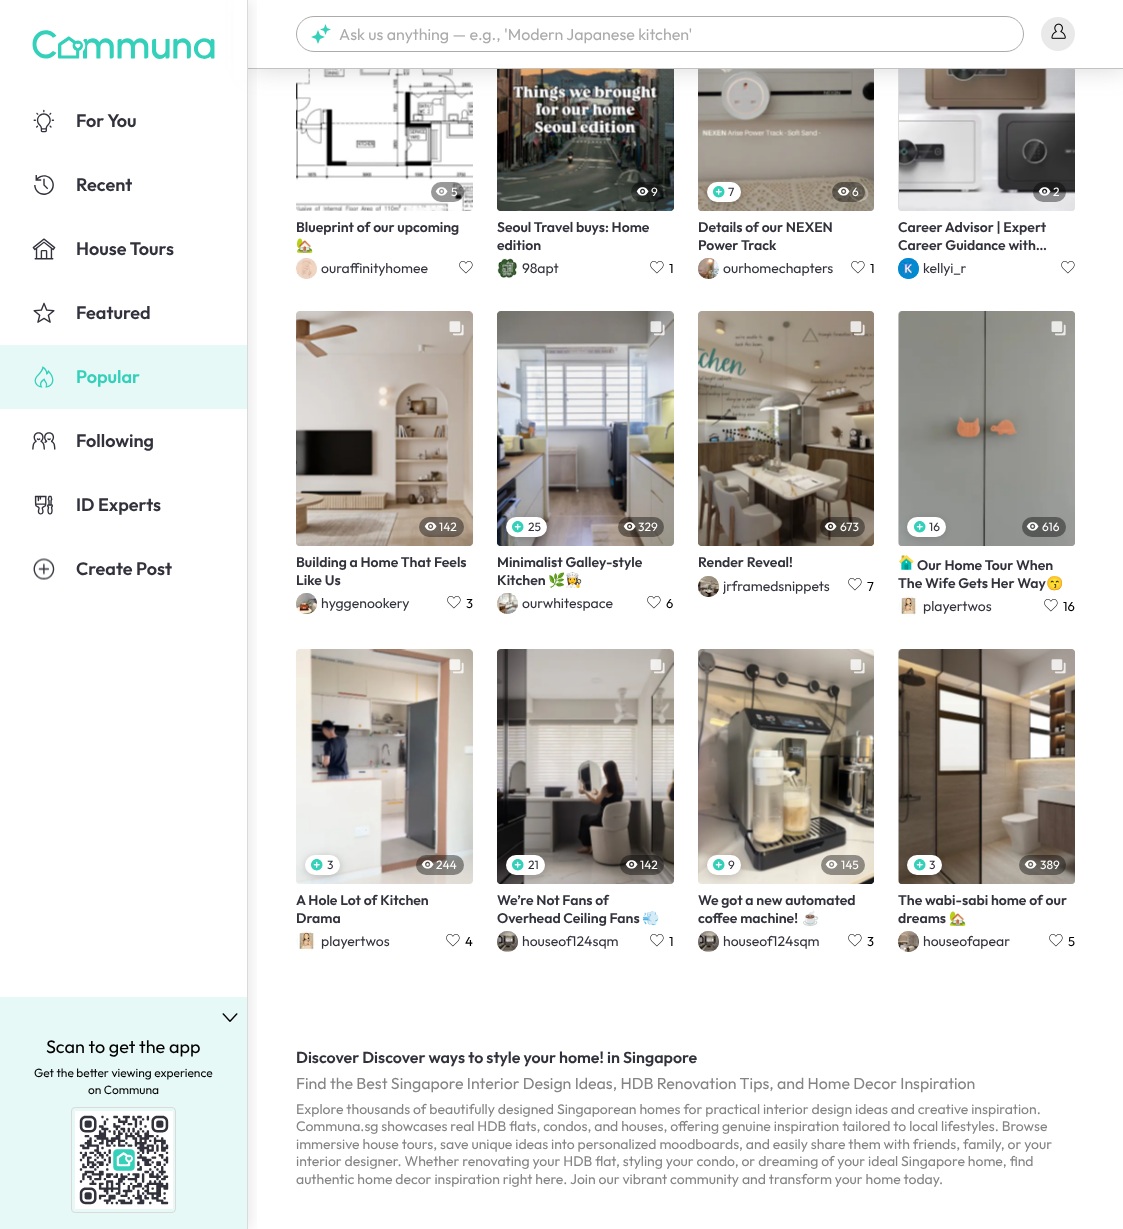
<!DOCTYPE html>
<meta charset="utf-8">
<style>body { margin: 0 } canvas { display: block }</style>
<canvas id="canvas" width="1123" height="1229"></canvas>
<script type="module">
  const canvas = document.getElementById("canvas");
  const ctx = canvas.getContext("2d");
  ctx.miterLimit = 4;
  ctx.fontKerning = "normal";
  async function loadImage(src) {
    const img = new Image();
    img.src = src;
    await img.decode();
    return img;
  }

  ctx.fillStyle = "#ffffff";
  ctx.fillRect(0, 0, 1123, 1229);
  ctx.drawImage(await loadImage("img14.png"), 296, 69, 177, 142);
  ctx.drawImage(await loadImage("img20.png"), 497, 69, 177, 142);
  ctx.drawImage(await loadImage("img25.png"), 698, 69, 176, 142);
  ctx.fillStyle = "#dddddd";
  ctx.beginPath();
  ctx.roundRect(898, -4, 177, 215, 4);
  ctx.fill();
  ctx.drawImage(await loadImage("img31.png"), 899, 69, 176, 142);
  ctx.fillStyle = "rgba(104, 104, 104, 0.24)";
  ctx.filter = "blur(12px)";
  ctx.beginPath();
  ctx.rect(251, 1, 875, 69);
  ctx.fill();
  ctx.filter = "none";
  ctx.fillStyle = "#ffffff";
  ctx.fillRect(234, 0, 13, 80);
  ctx.fillRect(248, 0, 875, 68);
  ctx.fillStyle = "#c2c2c2";
  ctx.fillRect(248, 68, 875, 1);
  ctx.save();
  ctx.beginPath();
  ctx.rect(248, 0, 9, 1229);
  ctx.clip();
  ctx.fillStyle = "rgba(0, 0, 0, 0.08)";
  ctx.filter = "blur(7px)";
  ctx.beginPath();
  ctx.rect(4, 0, 248, 1229);
  ctx.fill();
  ctx.filter = "none";
  ctx.restore();
  ctx.fillStyle = "#dadada";
  ctx.fillRect(247, 0, 1, 1229);
  ctx.drawImage(await loadImage("img1.png"), 32, 30, 183, 29);
  ctx.drawImage(await loadImage("img2.png"), 33, 109, 22, 24);
  ctx.font = "100 18px Outfit";
  ctx.fillStyle = "#32323c";
  ctx.fillText("For You", 76, 127);
  ctx.drawImage(await loadImage("img3.png"), 34, 175, 20, 20);
  ctx.fillText("Recent", 76, 191);
  ctx.drawImage(await loadImage("img4.png"), 32, 238, 24, 22);
  ctx.fillText("House Tours", 76, 255);
  ctx.drawImage(await loadImage("img5.png"), 33, 302, 22, 21);
  ctx.fillText("Featured", 76, 319);
  ctx.fillStyle = "#e6f9f7";
  ctx.fillRect(0, 345, 247, 64);
  ctx.drawImage(await loadImage("img6.png"), 34, 366, 20, 22);
  ctx.fillStyle = "#35d0ba";
  ctx.fillText("Popular", 76, 383);
  ctx.drawImage(await loadImage("img7.png"), 32, 432, 24, 18);
  ctx.fillStyle = "#32323c";
  ctx.fillText("Following", 76, 447);
  ctx.drawImage(await loadImage("img8.png"), 34, 495, 19, 20);
  ctx.fillText("ID Experts", 76, 511);
  ctx.drawImage(await loadImage("img9.png"), 33, 558, 22, 22);
  ctx.fillText("Create Post", 76, 575);
  ctx.fillStyle = "#e6f9f7";
  ctx.fillRect(0, 997, 247, 232);
  ctx.drawImage(await loadImage("img10.png"), 222, 1013, 16, 9);
  ctx.font = "100 18px 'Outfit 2'";
  ctx.fillStyle = "#000000";
  ctx.fillText("Scan to get the app", 46, 1053);
  ctx.font = "100 12px 'Outfit 2'";
  ctx.fillText("Get the better viewing experience", 34, 1077);
  ctx.fillText("on Communa", 88, 1094);
  ctx.beginPath();
  ctx.roundRect(71.5, 1107.5, 104, 105, 3.5);
  ctx.strokeStyle = "#dadada";
  ctx.stroke();
  ctx.drawImage(await loadImage("img11.png"), 75, 1111, 98, 98);
  ctx.drawImage(await loadImage("img12.png"), 311, 24, 20, 20);
  ctx.beginPath();
  ctx.roundRect(296.5, 16.5, 727, 35, 17.5);
  ctx.strokeStyle = "#ababab";
  ctx.stroke();
  ctx.font = "100 16px 'Outfit 2'";
  ctx.fillStyle = "#ababab";
  ctx.fillText("Ask us anything — e.g., 'Modern Japanese kitchen'", 339, 40);
  ctx.fillStyle = "#e9e9e9";
  ctx.beginPath();
  ctx.arc(1058, 34, 17, 0, Math.PI * 2);
  ctx.fill();
  ctx.drawImage(await loadImage("img13.png"), 1051, 23, 15, 16);
  ctx.drawImage(await loadImage("img15.png"), 296, 208, 177, 3);
  ctx.fillStyle = "rgba(0, 0, 0, 0.4)";
  ctx.beginPath();
  ctx.roundRect(431, 182, 33, 20, 10);
  ctx.fill();
  ctx.drawImage(await loadImage("img16.png"), 435, 187, 13, 9);
  ctx.font = "100 12px 'Outfit 2'";
  ctx.fillStyle = "#ffffff";
  ctx.fillText("5", 451, 196);
  ctx.font = "100 14px Outfit";
  ctx.fillStyle = "#32323c";
  ctx.fillText("Blueprint of our upcoming", 296, 232);
  ctx.font = "bold 14px Noto Color Emoji";
  ctx.fillText("🏡", 296, 250);
  ctx.drawImage(await loadImage("img17.png"), 296, 258, 21, 21);
  ctx.drawImage(await loadImage("img18.png"), 296, 258, 21, 21);
  ctx.font = "100 14px 'Outfit 2'";
  ctx.fillText("ouraffinityhomee", 321, 273);
  ctx.drawImage(await loadImage("img19.png"), 459, 261, 14, 13);
  ctx.drawImage(await loadImage("img21.png"), 497, 207, 177, 4);
  ctx.fillStyle = "rgba(0, 0, 0, 0.4)";
  ctx.beginPath();
  ctx.roundRect(631, 182, 33, 20, 10);
  ctx.fill();
  ctx.drawImage(await loadImage("img22.png"), 636, 187, 13, 9);
  ctx.font = "100 12px 'Outfit 2'";
  ctx.fillStyle = "#ffffff";
  ctx.fillText("9", 651, 196);
  ctx.font = "100 14px Outfit";
  ctx.fillStyle = "#32323c";
  ctx.fillText("Seoul Travel buys: Home", 497, 232);
  ctx.fillText("edition", 497, 250);
  ctx.drawImage(await loadImage("img23.png"), 497, 258, 21, 21);
  ctx.drawImage(await loadImage("img24.png"), 497, 258, 21, 21);
  ctx.font = "100 14px 'Outfit 2'";
  ctx.fillText("98apt", 522, 273);
  ctx.drawImage(await loadImage("img19.png"), 650, 261, 14, 13);
  ctx.font = "100 13px 'Outfit 2'";
  ctx.fillStyle = "#000000";
  ctx.fillText("1", 669, 273);
  ctx.drawImage(await loadImage("img26.png"), 698, 207, 176, 4);
  ctx.fillStyle = "rgba(0, 0, 0, 0.12)";
  ctx.filter = "blur(3px)";
  ctx.beginPath();
  ctx.roundRect(707, 183, 34, 20, 10);
  ctx.fill();
  ctx.filter = "none";
  ctx.save();
  ctx.beginPath();
  ctx.roundRect(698, -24, 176, 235, 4);
  ctx.clip();
  ctx.fillStyle = "rgba(0, 0, 0, 0.1)";
  ctx.filter = "blur(8px)";
  ctx.beginPath();
  ctx.roundRect(707, 186, 34, 20, 10);
  ctx.fill();
  ctx.filter = "none";
  ctx.restore();
  ctx.fillStyle = "#ffffff";
  ctx.beginPath();
  ctx.roundRect(707, 182, 34, 20, 10);
  ctx.fill();
  ctx.drawImage(await loadImage("img27.png"), 713, 186, 12, 12);
  ctx.font = "100 12px 'Outfit 2'";
  ctx.fillStyle = "#32323c";
  ctx.fillText("7", 728, 196);
  ctx.fillStyle = "rgba(0, 0, 0, 0.4)";
  ctx.beginPath();
  ctx.roundRect(832, 182, 33, 20, 10);
  ctx.fill();
  ctx.drawImage(await loadImage("img28.png"), 837, 187, 13, 9);
  ctx.fillStyle = "#ffffff";
  ctx.fillText("6", 852, 196);
  ctx.font = "100 14px Outfit";
  ctx.fillStyle = "#32323c";
  ctx.fillText("Details of our NEXEN", 698, 232);
  ctx.fillText("Power Track", 698, 250);
  ctx.drawImage(await loadImage("img29.png"), 698, 258, 21, 21);
  ctx.drawImage(await loadImage("img30.png"), 698, 258, 21, 21);
  ctx.font = "100 14px 'Outfit 2'";
  ctx.fillText("ourhomechapters", 723, 273);
  ctx.drawImage(await loadImage("img19.png"), 851, 261, 14, 13);
  ctx.font = "100 13px 'Outfit 2'";
  ctx.fillStyle = "#000000";
  ctx.fillText("1", 870, 273);
  ctx.fillStyle = "#ededef";
  ctx.fillRect(1073, 210, 1, 1);
  ctx.fillStyle = "rgba(0, 0, 0, 0.4)";
  ctx.beginPath();
  ctx.roundRect(1033, 182, 33, 20, 10);
  ctx.fill();
  ctx.drawImage(await loadImage("img32.png"), 1038, 187, 13, 9);
  ctx.font = "100 12px 'Outfit 2'";
  ctx.fillStyle = "#ffffff";
  ctx.fillText("2", 1053, 196);
  ctx.font = "100 14px Outfit";
  ctx.fillStyle = "#32323c";
  ctx.fillText("Career Advisor | Expert", 898, 232);
  ctx.fillText("Career Guidance with…", 898, 250);
  ctx.drawImage(await loadImage("img33.png"), 898, 258, 21, 21);
  ctx.drawImage(await loadImage("img34.png"), 898, 258, 21, 21);
  ctx.font = "100 14px 'Outfit 2'";
  ctx.fillText("kellyi_r", 923, 273);
  ctx.drawImage(await loadImage("img19.png"), 1061, 261, 14, 13);
  ctx.drawImage(await loadImage("img35.png"), 296, 311, 177, 235);
  ctx.drawImage(await loadImage("img36.png"), 296, 311, 177, 235);
  ctx.drawImage(await loadImage("img37.png"), 449, 321, 15, 15);
  ctx.fillStyle = "rgba(0, 0, 0, 0.4)";
  ctx.beginPath();
  ctx.roundRect(419, 517, 45, 20, 10);
  ctx.fill();
  ctx.drawImage(await loadImage("img38.png"), 424, 522, 13, 9);
  ctx.font = "100 12px 'Outfit 2'";
  ctx.fillStyle = "#ffffff";
  ctx.fillText("142", 439, 531);
  ctx.font = "100 14px Outfit";
  ctx.fillStyle = "#32323c";
  ctx.fillText("Building a Home That Feels", 296, 567);
  ctx.fillText("Like Us", 296, 585);
  ctx.drawImage(await loadImage("img39.png"), 296, 593, 21, 21);
  ctx.drawImage(await loadImage("img40.png"), 296, 593, 21, 21);
  ctx.font = "100 14px 'Outfit 2'";
  ctx.fillText("hyggenookery", 321, 608);
  ctx.drawImage(await loadImage("img19.png"), 447, 596, 14, 13);
  ctx.font = "100 13px 'Outfit 2'";
  ctx.fillStyle = "#000000";
  ctx.fillText("3", 466, 608);
  ctx.drawImage(await loadImage("img41.png"), 497, 311, 177, 235);
  ctx.drawImage(await loadImage("img42.png"), 497, 311, 177, 235);
  ctx.drawImage(await loadImage("img43.png"), 650, 321, 15, 15);
  ctx.fillStyle = "rgba(0, 0, 0, 0.12)";
  ctx.filter = "blur(3px)";
  ctx.beginPath();
  ctx.roundRect(506, 518, 41, 20, 10);
  ctx.fill();
  ctx.filter = "none";
  ctx.save();
  ctx.beginPath();
  ctx.roundRect(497, 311, 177, 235, 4);
  ctx.clip();
  ctx.fillStyle = "rgba(0, 0, 0, 0.1)";
  ctx.filter = "blur(8px)";
  ctx.beginPath();
  ctx.roundRect(506, 521, 41, 20, 10);
  ctx.fill();
  ctx.filter = "none";
  ctx.restore();
  ctx.fillStyle = "#ffffff";
  ctx.beginPath();
  ctx.roundRect(506, 517, 41, 20, 10);
  ctx.fill();
  ctx.drawImage(await loadImage("img27.png"), 512, 521, 12, 12);
  ctx.font = "100 12px 'Outfit 2'";
  ctx.fillStyle = "#32323c";
  ctx.fillText("25", 528, 531);
  ctx.fillStyle = "rgba(0, 0, 0, 0.4)";
  ctx.beginPath();
  ctx.roundRect(618, 517, 46, 20, 10);
  ctx.fill();
  ctx.drawImage(await loadImage("img44.png"), 623, 522, 13, 9);
  ctx.fillStyle = "#ffffff";
  ctx.fillText("329", 638, 531);
  ctx.font = "100 14px Outfit";
  ctx.fillStyle = "#32323c";
  ctx.fillText("Minimalist Galley-style", 497, 567);
  ctx.fillText("Kitchen", 497, 585);
  ctx.font = "bold 14px Noto Color Emoji";
  ctx.fillText("🌿👩‍🍳", 548, 585);
  ctx.drawImage(await loadImage("img45.png"), 497, 593, 21, 21);
  ctx.drawImage(await loadImage("img46.png"), 497, 593, 21, 21);
  ctx.font = "100 14px 'Outfit 2'";
  ctx.fillText("ourwhitespace", 522, 608);
  ctx.drawImage(await loadImage("img19.png"), 647, 596, 14, 13);
  ctx.font = "100 13px 'Outfit 2'";
  ctx.fillStyle = "#000000";
  ctx.fillText("6", 666, 608);
  ctx.drawImage(await loadImage("img47.png"), 698, 311, 176, 235);
  ctx.drawImage(await loadImage("img48.png"), 698, 311, 176, 235);
  ctx.drawImage(await loadImage("img49.png"), 850, 321, 15, 15);
  ctx.fillStyle = "rgba(0, 0, 0, 0.4)";
  ctx.beginPath();
  ctx.roundRect(820, 517, 45, 20, 10);
  ctx.fill();
  ctx.drawImage(await loadImage("img50.png"), 824, 522, 13, 9);
  ctx.font = "100 12px 'Outfit 2'";
  ctx.fillStyle = "#ffffff";
  ctx.fillText("673", 840, 531);
  ctx.font = "100 14px Outfit";
  ctx.fillStyle = "#32323c";
  ctx.fillText("Render Reveal!", 698, 567);
  ctx.drawImage(await loadImage("img51.png"), 698, 576, 21, 21);
  ctx.drawImage(await loadImage("img52.png"), 698, 576, 21, 21);
  ctx.save();
  ctx.beginPath();
  ctx.rect(723, 578, 115, 17);
  ctx.clip();
  ctx.font = "100 14px 'Outfit 2'";
  ctx.fillText("jrframedsnippets", 723, 591);
  ctx.restore();
  ctx.drawImage(await loadImage("img19.png"), 848, 578, 14, 13);
  ctx.font = "100 13px 'Outfit 2'";
  ctx.fillStyle = "#000000";
  ctx.fillText("7", 867, 591);
  ctx.fillStyle = "#dddddd";
  ctx.beginPath();
  ctx.roundRect(898, 311, 177, 235, 4);
  ctx.fill();
  ctx.drawImage(await loadImage("img53.png"), 899, 311, 176, 235);
  ctx.drawImage(await loadImage("img54.png"), 898, 311, 177, 235);
  ctx.drawImage(await loadImage("img55.png"), 1051, 321, 15, 15);
  ctx.fillStyle = "rgba(0, 0, 0, 0.12)";
  ctx.filter = "blur(3px)";
  ctx.beginPath();
  ctx.roundRect(907, 518, 39, 20, 10);
  ctx.fill();
  ctx.filter = "none";
  ctx.fillStyle = "#ffffff";
  ctx.beginPath();
  ctx.roundRect(907, 517, 39, 20, 10);
  ctx.fill();
  ctx.drawImage(await loadImage("img27.png"), 914, 521, 12, 12);
  ctx.font = "100 12px 'Outfit 2'";
  ctx.fillStyle = "#32323c";
  ctx.fillText("16", 929, 531);
  ctx.fillStyle = "rgba(0, 0, 0, 0.4)";
  ctx.beginPath();
  ctx.roundRect(1022, 517, 44, 20, 10);
  ctx.fill();
  ctx.drawImage(await loadImage("img56.png"), 1026, 522, 13, 9);
  ctx.fillStyle = "#ffffff";
  ctx.fillText("616", 1042, 531);
  ctx.drawImage(await loadImage("img57.png"), 899, 555, 15, 15);
  ctx.font = "100 14px Outfit";
  ctx.fillStyle = "#32323c";
  ctx.fillText("Our Home Tour When", 917, 570);
  ctx.fillText("The Wife Gets Her Way", 898, 588);
  ctx.font = "bold 14px Noto Color Emoji";
  ctx.fillText("😙", 1046, 588);
  ctx.drawImage(await loadImage("img58.png"), 898, 596, 21, 21);
  ctx.drawImage(await loadImage("img59.png"), 898, 596, 21, 21);
  ctx.font = "100 14px 'Outfit 2'";
  ctx.fillText("playertwos", 923, 611);
  ctx.drawImage(await loadImage("img19.png"), 1044, 599, 14, 13);
  ctx.font = "100 13px 'Outfit 2'";
  ctx.fillStyle = "#000000";
  ctx.fillText("16", 1063, 611);
  ctx.drawImage(await loadImage("img60.png"), 296, 649, 177, 235);
  ctx.drawImage(await loadImage("img61.png"), 296, 649, 177, 235);
  ctx.drawImage(await loadImage("img62.png"), 449, 659, 15, 15);
  ctx.fillStyle = "rgba(0, 0, 0, 0.12)";
  ctx.filter = "blur(3px)";
  ctx.beginPath();
  ctx.roundRect(305, 856, 35, 20, 10);
  ctx.fill();
  ctx.filter = "none";
  ctx.save();
  ctx.beginPath();
  ctx.roundRect(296, 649, 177, 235, 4);
  ctx.clip();
  ctx.fillStyle = "rgba(0, 0, 0, 0.1)";
  ctx.filter = "blur(8px)";
  ctx.beginPath();
  ctx.roundRect(305, 859, 35, 20, 10);
  ctx.fill();
  ctx.filter = "none";
  ctx.restore();
  ctx.fillStyle = "#ffffff";
  ctx.beginPath();
  ctx.roundRect(305, 855, 35, 20, 10);
  ctx.fill();
  ctx.drawImage(await loadImage("img27.png"), 311, 859, 12, 12);
  ctx.font = "100 12px 'Outfit 2'";
  ctx.fillStyle = "#32323c";
  ctx.fillText("3", 327, 869);
  ctx.fillStyle = "rgba(0, 0, 0, 0.4)";
  ctx.beginPath();
  ctx.roundRect(416, 855, 48, 20, 10);
  ctx.fill();
  ctx.drawImage(await loadImage("img63.png"), 421, 860, 13, 9);
  ctx.fillStyle = "#ffffff";
  ctx.fillText("244", 436, 869);
  ctx.font = "100 14px Outfit";
  ctx.fillStyle = "#32323c";
  ctx.fillText("A Hole Lot of Kitchen", 296, 905);
  ctx.fillText("Drama", 296, 923);
  ctx.drawImage(await loadImage("img64.png"), 296, 931, 21, 21);
  ctx.drawImage(await loadImage("img65.png"), 296, 931, 21, 21);
  ctx.font = "100 14px 'Outfit 2'";
  ctx.fillText("playertwos", 321, 946);
  ctx.drawImage(await loadImage("img19.png"), 446, 934, 14, 13);
  ctx.font = "100 13px 'Outfit 2'";
  ctx.fillStyle = "#000000";
  ctx.fillText("4", 465, 946);
  ctx.drawImage(await loadImage("img66.png"), 497, 649, 177, 235);
  ctx.drawImage(await loadImage("img67.png"), 497, 649, 177, 235);
  ctx.drawImage(await loadImage("img68.png"), 650, 659, 15, 15);
  ctx.fillStyle = "rgba(0, 0, 0, 0.12)";
  ctx.filter = "blur(3px)";
  ctx.beginPath();
  ctx.roundRect(506, 856, 39, 20, 10);
  ctx.fill();
  ctx.filter = "none";
  ctx.save();
  ctx.beginPath();
  ctx.roundRect(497, 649, 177, 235, 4);
  ctx.clip();
  ctx.fillStyle = "rgba(0, 0, 0, 0.1)";
  ctx.filter = "blur(8px)";
  ctx.beginPath();
  ctx.roundRect(506, 859, 39, 20, 10);
  ctx.fill();
  ctx.filter = "none";
  ctx.restore();
  ctx.fillStyle = "#ffffff";
  ctx.beginPath();
  ctx.roundRect(506, 855, 39, 20, 10);
  ctx.fill();
  ctx.drawImage(await loadImage("img27.png"), 512, 859, 12, 12);
  ctx.font = "100 12px 'Outfit 2'";
  ctx.fillStyle = "#32323c";
  ctx.fillText("21", 528, 869);
  ctx.fillStyle = "rgba(0, 0, 0, 0.4)";
  ctx.beginPath();
  ctx.roundRect(620, 855, 44, 20, 10);
  ctx.fill();
  ctx.drawImage(await loadImage("img69.png"), 625, 860, 13, 9);
  ctx.fillStyle = "#ffffff";
  ctx.fillText("142", 640, 869);
  ctx.font = "100 14px Outfit";
  ctx.fillStyle = "#32323c";
  ctx.fillText("We’re Not Fans of", 497, 905);
  ctx.fillText("Overhead Ceiling Fans", 497, 923);
  ctx.font = "bold 14px Noto Color Emoji";
  ctx.fillText("💨", 642, 923);
  ctx.drawImage(await loadImage("img70.png"), 497, 931, 21, 21);
  ctx.drawImage(await loadImage("img71.png"), 497, 931, 21, 21);
  ctx.font = "100 14px 'Outfit 2'";
  ctx.fillText("houseof124sqm", 522, 946);
  ctx.drawImage(await loadImage("img19.png"), 650, 934, 14, 13);
  ctx.font = "100 13px 'Outfit 2'";
  ctx.fillStyle = "#000000";
  ctx.fillText("1", 669, 946);
  ctx.drawImage(await loadImage("img72.png"), 698, 649, 176, 235);
  ctx.drawImage(await loadImage("img73.png"), 698, 649, 176, 235);
  ctx.drawImage(await loadImage("img74.png"), 850, 659, 15, 15);
  ctx.fillStyle = "rgba(0, 0, 0, 0.12)";
  ctx.filter = "blur(3px)";
  ctx.beginPath();
  ctx.roundRect(707, 856, 34, 20, 10);
  ctx.fill();
  ctx.filter = "none";
  ctx.save();
  ctx.beginPath();
  ctx.roundRect(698, 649, 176, 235, 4);
  ctx.clip();
  ctx.fillStyle = "rgba(0, 0, 0, 0.1)";
  ctx.filter = "blur(8px)";
  ctx.beginPath();
  ctx.roundRect(707, 859, 34, 20, 10);
  ctx.fill();
  ctx.filter = "none";
  ctx.restore();
  ctx.fillStyle = "#ffffff";
  ctx.beginPath();
  ctx.roundRect(707, 855, 34, 20, 10);
  ctx.fill();
  ctx.drawImage(await loadImage("img27.png"), 713, 859, 12, 12);
  ctx.font = "100 12px 'Outfit 2'";
  ctx.fillStyle = "#32323c";
  ctx.fillText("9", 728, 869);
  ctx.fillStyle = "rgba(0, 0, 0, 0.4)";
  ctx.beginPath();
  ctx.roundRect(821, 855, 44, 20, 10);
  ctx.fill();
  ctx.drawImage(await loadImage("img75.png"), 825, 860, 13, 9);
  ctx.fillStyle = "#ffffff";
  ctx.fillText("145", 841, 869);
  ctx.font = "100 14px Outfit";
  ctx.fillStyle = "#32323c";
  ctx.fillText("We got a new automated", 698, 905);
  ctx.fillText("coffee machine!", 698, 923);
  ctx.font = "bold 14px Noto Color Emoji";
  ctx.fillText("☕️", 802, 923);
  ctx.drawImage(await loadImage("img70.png"), 698, 931, 21, 21);
  ctx.drawImage(await loadImage("img71.png"), 698, 931, 21, 21);
  ctx.font = "100 14px 'Outfit 2'";
  ctx.fillText("houseof124sqm", 723, 946);
  ctx.drawImage(await loadImage("img19.png"), 848, 934, 14, 13);
  ctx.font = "100 13px 'Outfit 2'";
  ctx.fillStyle = "#000000";
  ctx.fillText("3", 867, 946);
  ctx.fillStyle = "#dddddd";
  ctx.beginPath();
  ctx.roundRect(898, 649, 177, 235, 4);
  ctx.fill();
  ctx.drawImage(await loadImage("img76.png"), 899, 649, 176, 235);
  ctx.drawImage(await loadImage("img77.png"), 898, 649, 177, 235);
  ctx.drawImage(await loadImage("img78.png"), 1051, 659, 15, 15);
  ctx.fillStyle = "rgba(0, 0, 0, 0.12)";
  ctx.filter = "blur(3px)";
  ctx.beginPath();
  ctx.roundRect(907, 856, 35, 20, 10);
  ctx.fill();
  ctx.filter = "none";
  ctx.fillStyle = "#ffffff";
  ctx.beginPath();
  ctx.roundRect(907, 855, 35, 20, 10);
  ctx.fill();
  ctx.drawImage(await loadImage("img27.png"), 914, 859, 12, 12);
  ctx.font = "100 12px 'Outfit 2'";
  ctx.fillStyle = "#32323c";
  ctx.fillText("3", 929, 869);
  ctx.fillStyle = "rgba(0, 0, 0, 0.4)";
  ctx.beginPath();
  ctx.roundRect(1019, 855, 47, 20, 10);
  ctx.fill();
  ctx.drawImage(await loadImage("img79.png"), 1024, 860, 13, 9);
  ctx.fillStyle = "#ffffff";
  ctx.fillText("389", 1040, 869);
  ctx.font = "100 14px Outfit";
  ctx.fillStyle = "#32323c";
  ctx.fillText("The wabi-sabi home of our", 898, 905);
  ctx.fillText("dreams", 898, 923);
  ctx.font = "bold 14px Noto Color Emoji";
  ctx.fillText("🏡", 949, 923);
  ctx.drawImage(await loadImage("img80.png"), 898, 931, 21, 21);
  ctx.drawImage(await loadImage("img81.png"), 898, 931, 21, 21);
  ctx.font = "100 14px 'Outfit 2'";
  ctx.fillText("houseofapear", 923, 946);
  ctx.drawImage(await loadImage("img19.png"), 1049, 934, 14, 13);
  ctx.font = "100 13px 'Outfit 2'";
  ctx.fillStyle = "#000000";
  ctx.fillText("5", 1068, 946);
  ctx.font = "100 15.95px Outfit";
  ctx.fillStyle = "#32323c";
  ctx.fillText("Discover Discover ways to style your home! in Singapore", 296, 1063);
  ctx.font = "100 15.95px 'Outfit 2'";
  ctx.fillStyle = "#848484";
  ctx.fillText("Find the Best Singapore Interior Design Ideas, HDB Renovation Tips, and Home Decor Inspiration", 296, 1089);
  ctx.font = "100 14px 'Outfit 2'";
  ctx.fillText("Explore thousands of beautifully designed Singaporean homes for practical interior design ideas and creative inspiration.", 296, 1114);
  ctx.fillText("Communa.sg showcases real HDB flats, condos, and houses, offering genuine inspiration tailored to local lifestyles. Browse", 296, 1131);
  ctx.fillText("immersive house tours, save unique ideas into personalized moodboards, and easily share them with friends, family, or your", 296, 1149);
  ctx.fillText("interior designer. Whether renovating your HDB flat, styling your condo, or dreaming of your ideal Singapore home, find", 296, 1166);
  ctx.fillText("authentic home decor inspiration right here. Join our vibrant community and transform your home today.", 296, 1184);
</script>
